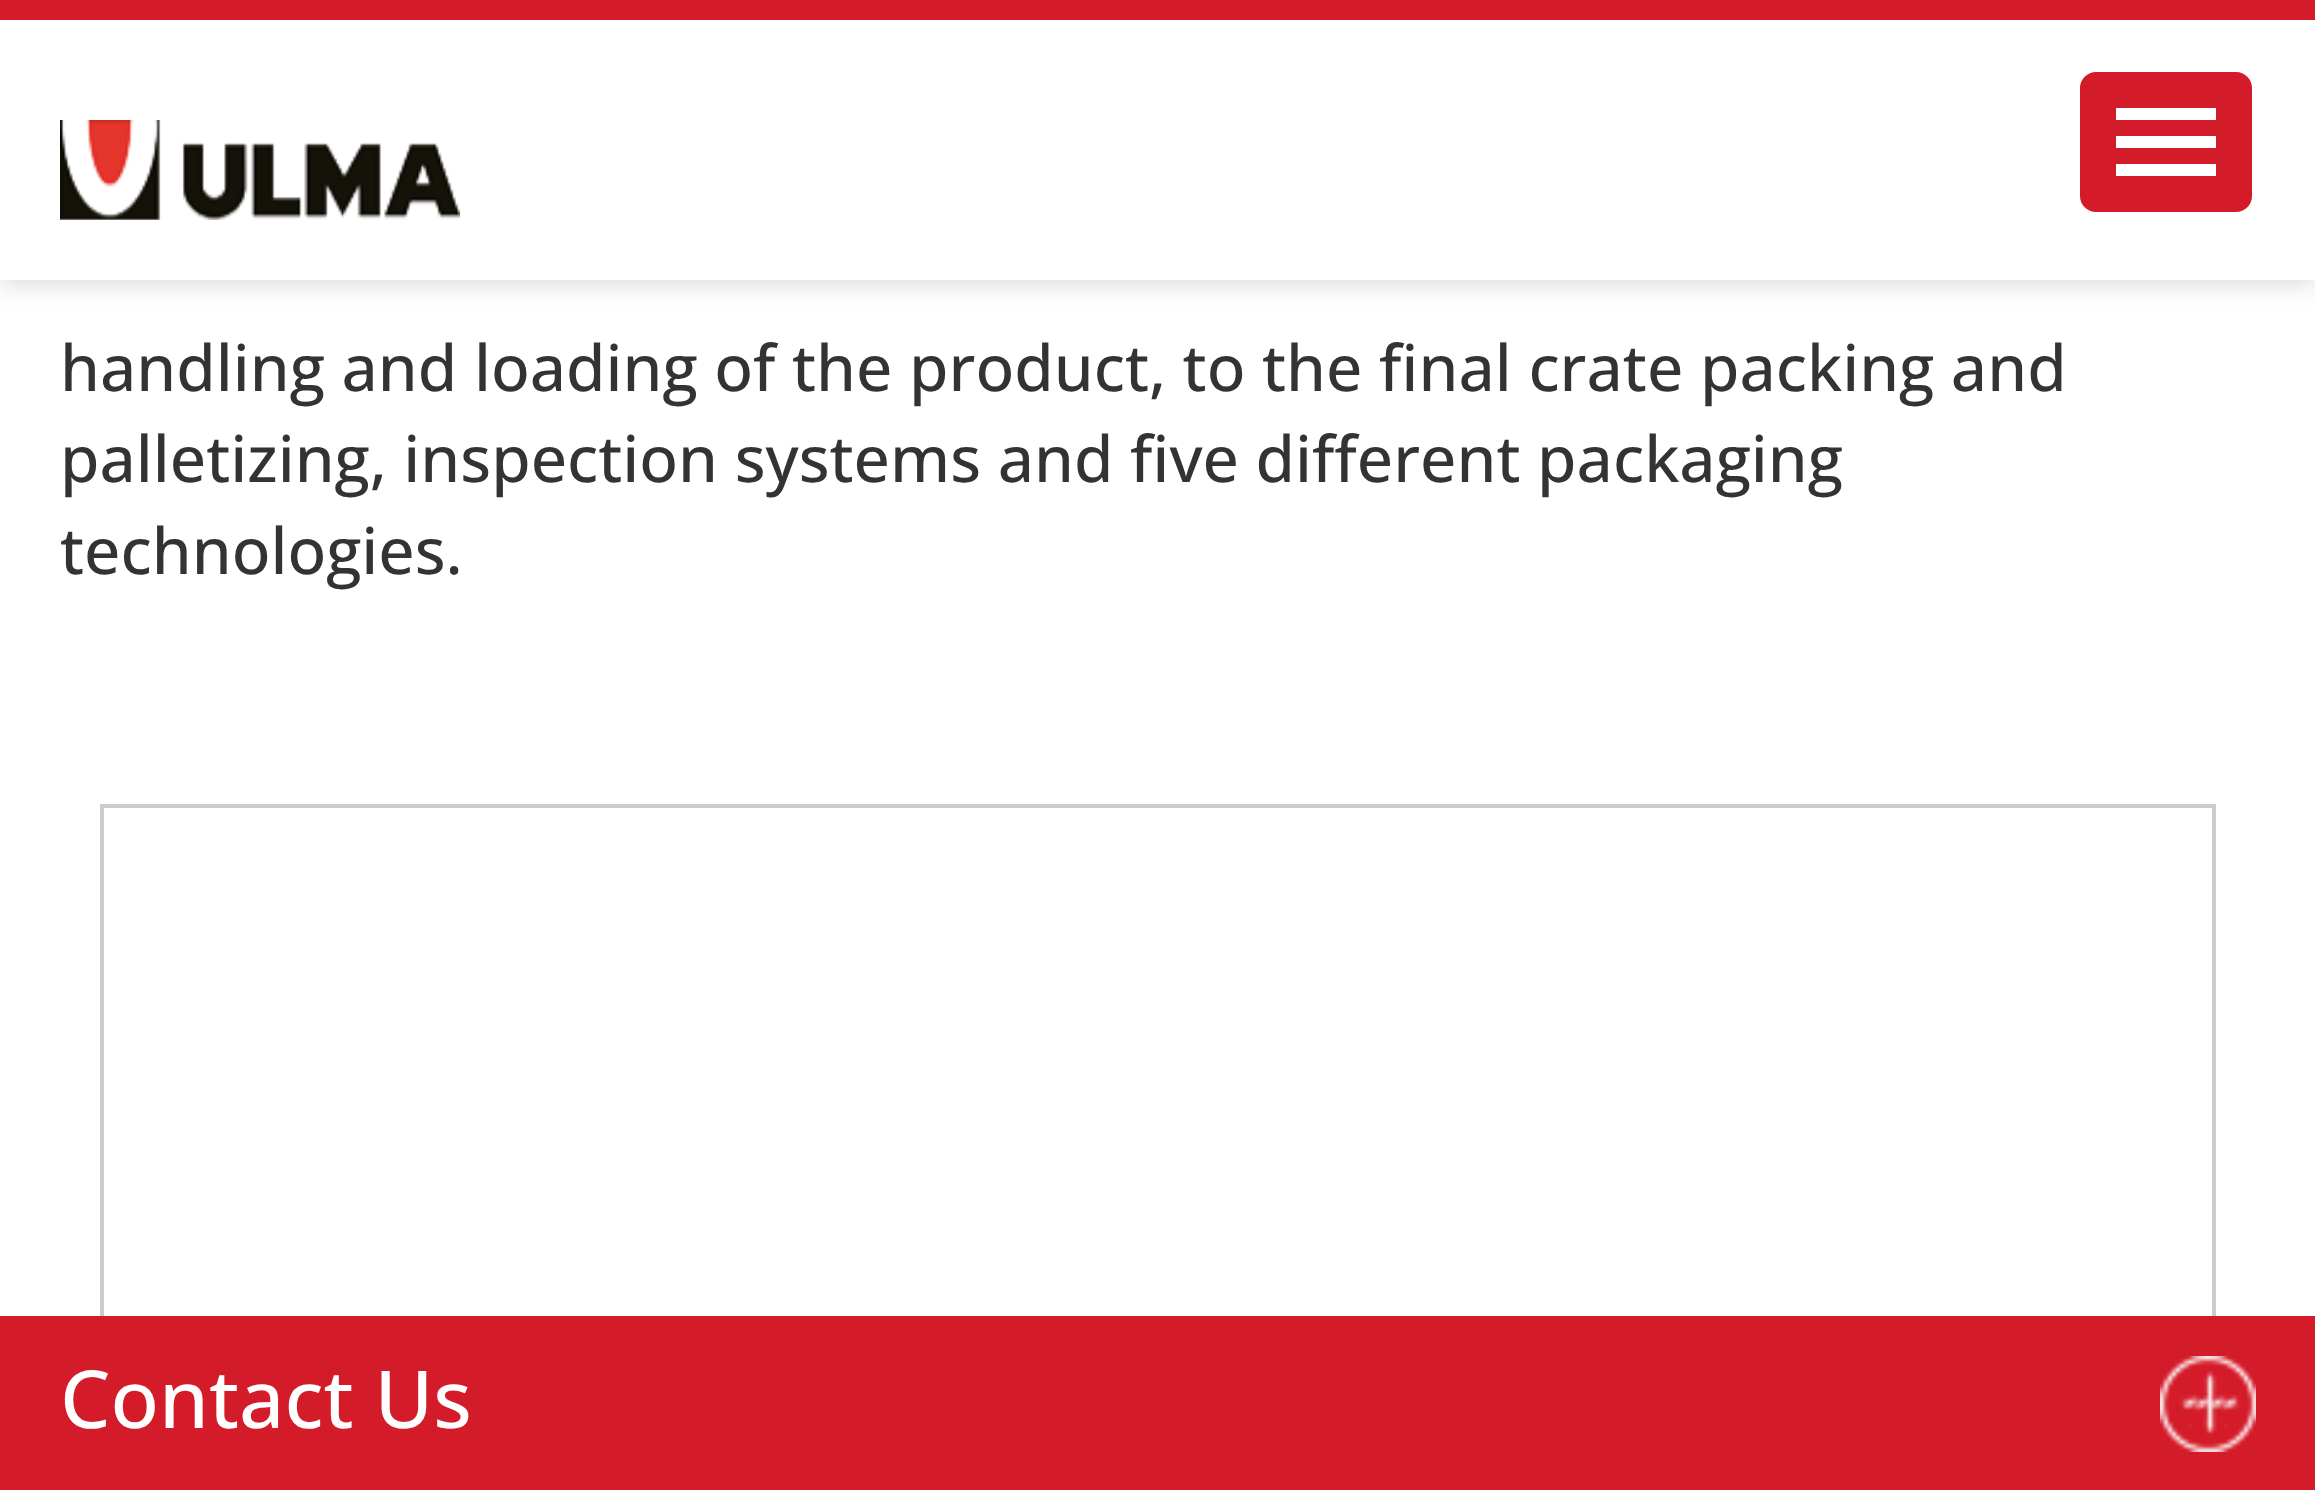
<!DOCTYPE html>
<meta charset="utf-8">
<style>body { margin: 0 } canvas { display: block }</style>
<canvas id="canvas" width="2315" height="1490"></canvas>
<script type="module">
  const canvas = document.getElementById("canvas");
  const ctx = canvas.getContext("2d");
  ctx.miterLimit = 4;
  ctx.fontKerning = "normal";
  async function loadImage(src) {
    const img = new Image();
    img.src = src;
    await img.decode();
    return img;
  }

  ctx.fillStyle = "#ffffff";
  ctx.fillRect(0, 0, 2315, 1490);
  ctx.fillStyle = "rgba(0, 0, 0, 0.15)";
  ctx.filter = "blur(12px)";
  ctx.beginPath();
  ctx.rect(0, 4, 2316, 280);
  ctx.fill();
  ctx.filter = "none";
  ctx.fillStyle = "#ffffff";
  ctx.fillRect(0, 20, 2315, 260);
  ctx.fillStyle = "#d41b29";
  ctx.fillRect(0, 0, 2315, 20);
  ctx.drawImage(await loadImage("img1.png"), 60, 120, 400, 100);
  ctx.beginPath();
  ctx.roundRect(2082, 74, 168, 136, 14);
  ctx.fill();
  ctx.strokeStyle = "#d41b29";
  ctx.lineWidth = 4;
  ctx.stroke();
  ctx.fillStyle = "#ffffff";
  ctx.fillRect(2116, 108, 100, 12);
  ctx.fillRect(2116, 136, 100, 12);
  ctx.fillRect(2116, 164, 100, 12);
  ctx.font = "500 64px Open Sans";
  ctx.fillStyle = "#333333";
  ctx.fillText("handling and loading of the product, to the final crate packing and", 60, 391);
  ctx.fillText("palletizing, inspection systems and five different packaging", 60, 482);
  ctx.fillText("technologies.", 60, 574);
  ctx.strokeStyle = "#cccccc";
  ctx.strokeRect(102, 806, 2112, 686);
  ctx.fillStyle = "#d41b29";
  ctx.fillRect(0, 1316, 2315, 174);
  ctx.font = "500 80px Open Sans";
  ctx.fillStyle = "#ffffff";
  ctx.fillText("Contact Us", 60, 1428);
  ctx.drawImage(await loadImage("img2.png"), 2160, 1356, 96, 96);
</script>
